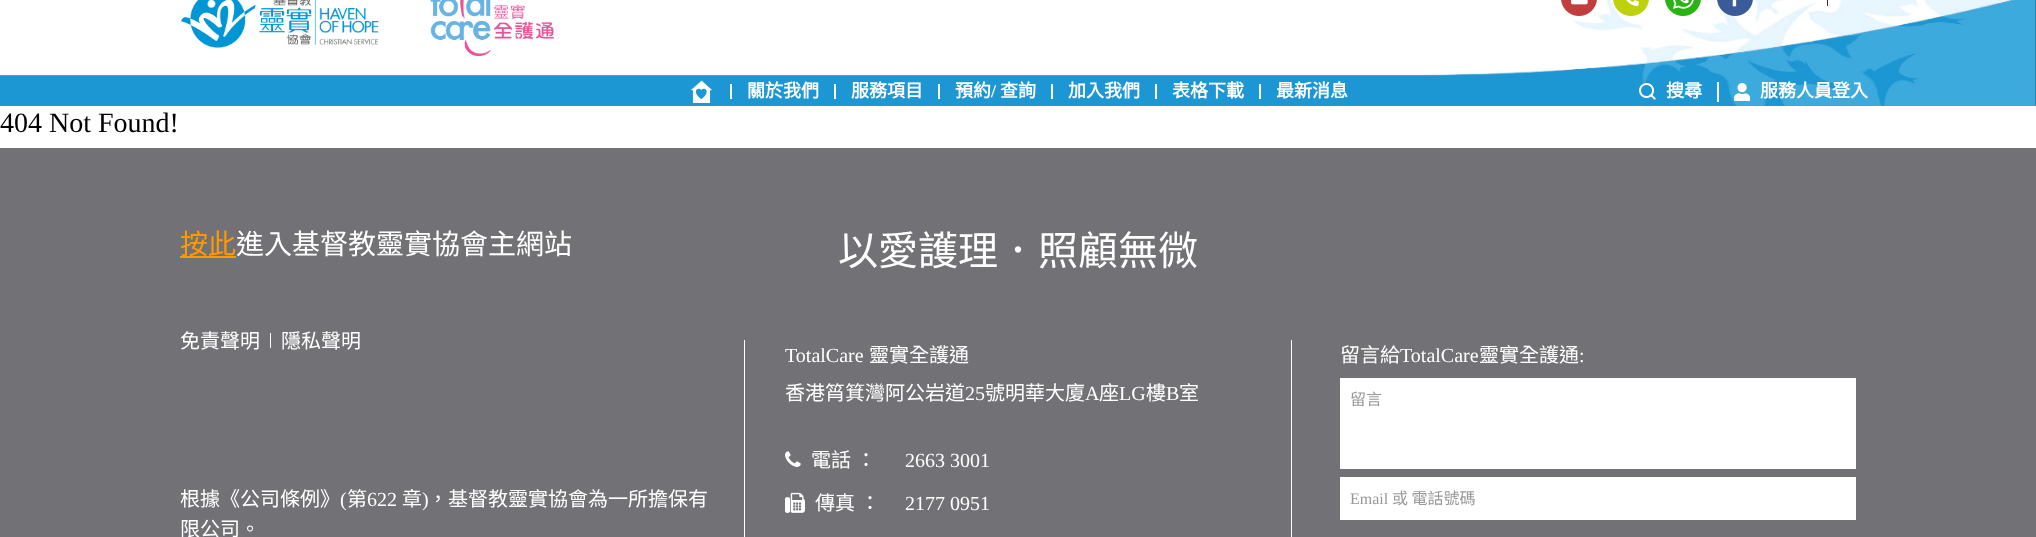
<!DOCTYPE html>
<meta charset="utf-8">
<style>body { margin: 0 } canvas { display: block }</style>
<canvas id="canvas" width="2036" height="537"></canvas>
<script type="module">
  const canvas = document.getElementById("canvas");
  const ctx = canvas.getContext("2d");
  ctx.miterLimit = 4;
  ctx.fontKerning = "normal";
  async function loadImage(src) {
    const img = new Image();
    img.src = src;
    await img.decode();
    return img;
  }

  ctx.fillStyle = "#ffffff";
  ctx.fillRect(0, 0, 2036, 537);
  ctx.drawImage(await loadImage("img1.png"), 0, 0, 2036, 106);
  ctx.drawImage(await loadImage("img2.png"), 181, 0, 198, 48);
  ctx.drawImage(await loadImage("img3.png"), 430, 0, 124, 57);
  ctx.drawImage(await loadImage("img4.png"), 1561, 0, 36, 16);
  ctx.drawImage(await loadImage("img5.png"), 1613, 0, 36, 16);
  ctx.drawImage(await loadImage("img6.png"), 1665, 0, 36, 16);
  ctx.drawImage(await loadImage("img7.png"), 1717, 0, 36, 16);
  ctx.fillStyle = "#333333";
  ctx.fillRect(1827, 0, 1, 6);
  ctx.drawImage(await loadImage("img8.png"), 690, 80, 23, 23);
  ctx.fillStyle = "#ffffff";
  ctx.fillRect(730, 84, 2, 15);
  ctx.font = "bold 18px Noto Sans CJK HK";
  ctx.fillText("關於我們", 747, 97);
  ctx.fillRect(834, 84, 2, 15);
  ctx.fillText("服務項目", 851, 97);
  ctx.fillRect(938, 84, 2, 15);
  ctx.fillText("預約", 955, 97);
  ctx.font = "bold 18px Liberation Serif";
  ctx.fillText("/", 991, 97);
  ctx.font = "bold 18px Noto Sans CJK HK";
  ctx.fillText("查詢", 1000, 97);
  ctx.fillRect(1051, 84, 2, 15);
  ctx.fillText("加入我們", 1068, 97);
  ctx.fillRect(1155, 84, 2, 15);
  ctx.fillText("表格下載", 1172, 97);
  ctx.fillRect(1259, 84, 2, 15);
  ctx.fillText("最新消息", 1276, 97);
  ctx.drawImage(await loadImage("img9.png"), 1639, 83, 17, 17);
  ctx.fillText("搜尋", 1666, 97);
  ctx.fillRect(1717, 82, 2, 20);
  ctx.drawImage(await loadImage("img10.png"), 1734, 83, 16, 18);
  ctx.fillText("服務人員登入", 1760, 97);
  ctx.font = "28px Liberation Serif";
  ctx.fillStyle = "#000000";
  ctx.fillText("404 Not Found!", 0, 132);
  ctx.fillStyle = "#727176";
  ctx.fillRect(0, 148, 2036, 389);
  ctx.fillStyle = "#ff9900";
  ctx.fillRect(180, 256, 56, 2);
  ctx.font = "28px Noto Sans CJK HK";
  ctx.fillText("按此", 180, 254);
  ctx.fillStyle = "#ffffff";
  ctx.fillText("進入基督教靈實協會主網站", 236, 254);
  ctx.font = "20px Noto Sans CJK HK";
  ctx.fillText("免責聲明", 180, 348);
  ctx.fillRect(270, 333, 1, 15);
  ctx.fillText("隱私聲明", 281, 348);
  ctx.fillText("根據《公司條例》", 180, 506);
  ctx.font = "20px Liberation Serif";
  ctx.fillText("(", 340, 506);
  ctx.font = "20px Noto Sans CJK HK";
  ctx.fillText("第", 347, 506);
  ctx.font = "20px Liberation Serif";
  ctx.fillText("622", 367, 506);
  ctx.font = "20px Noto Sans CJK HK";
  ctx.fillText("章", 402, 506);
  ctx.font = "20px Liberation Serif";
  ctx.fillText(")", 422, 506);
  ctx.font = "20px Noto Sans CJK HK";
  ctx.fillText("，基督教靈實協會為一所擔保有", 428, 506);
  ctx.fillText("限公司。", 180, 536);
  ctx.font = "40px Noto Sans CJK HK";
  ctx.fillText("以愛護理．照顧無微", 838, 265);
  ctx.fillRect(1291, 340, 1, 197);
  ctx.fillRect(744, 340, 1, 197);
  ctx.font = "20px Liberation Serif";
  ctx.fillText("TotalCare", 785, 362);
  ctx.font = "20px Noto Sans CJK HK";
  ctx.fillText("靈實全護通", 869, 362);
  ctx.fillText("香港筲箕灣阿公岩道", 785, 400);
  ctx.font = "20px Liberation Serif";
  ctx.fillText("25", 965, 400);
  ctx.font = "20px Noto Sans CJK HK";
  ctx.fillText("號明華大廈", 985, 400);
  ctx.font = "20px Liberation Serif";
  ctx.fillText("A", 1085, 400);
  ctx.font = "20px Noto Sans CJK HK";
  ctx.fillText("座", 1099, 400);
  ctx.font = "20px Liberation Serif";
  ctx.fillText("LG", 1119, 400);
  ctx.font = "20px Noto Sans CJK HK";
  ctx.fillText("樓", 1146, 400);
  ctx.font = "20px Liberation Serif";
  ctx.fillText("B", 1166, 400);
  ctx.font = "20px Noto Sans CJK HK";
  ctx.fillText("室", 1179, 400);
  ctx.drawImage(await loadImage("img11.png"), 785, 451, 16, 16);
  ctx.fillText("電話", 811, 467);
  ctx.fillText("：", 856, 467);
  ctx.font = "20px Liberation Serif";
  ctx.fillText("2663 3001", 905, 467);
  ctx.drawImage(await loadImage("img12.png"), 785, 492, 20, 21);
  ctx.font = "20px Noto Sans CJK HK";
  ctx.fillText("傳真", 815, 510);
  ctx.fillText("：", 860, 510);
  ctx.font = "20px Liberation Serif";
  ctx.fillText("2177 0951", 905, 510);
  ctx.font = "20px Noto Sans CJK HK";
  ctx.fillText("留言給", 1340, 362);
  ctx.font = "20px Liberation Serif";
  ctx.fillText("TotalCare", 1400, 362);
  ctx.font = "20px Noto Sans CJK HK";
  ctx.fillText("靈實全護通", 1479, 362);
  ctx.font = "20px Liberation Serif";
  ctx.fillText(":", 1579, 362);
  ctx.fillRect(1340, 378, 516, 91);
  ctx.font = "16px Noto Sans CJK HK";
  ctx.fillStyle = "#999999";
  ctx.fillText("留言", 1350, 405);
  ctx.fillStyle = "#ffffff";
  ctx.fillRect(1340, 477, 516, 43);
  ctx.font = "16px Liberation Serif";
  ctx.fillStyle = "#999999";
  ctx.fillText("Email", 1350, 504);
  ctx.font = "16px Noto Sans CJK HK";
  ctx.fillText("或 電話號碼", 1392, 504);
</script>
